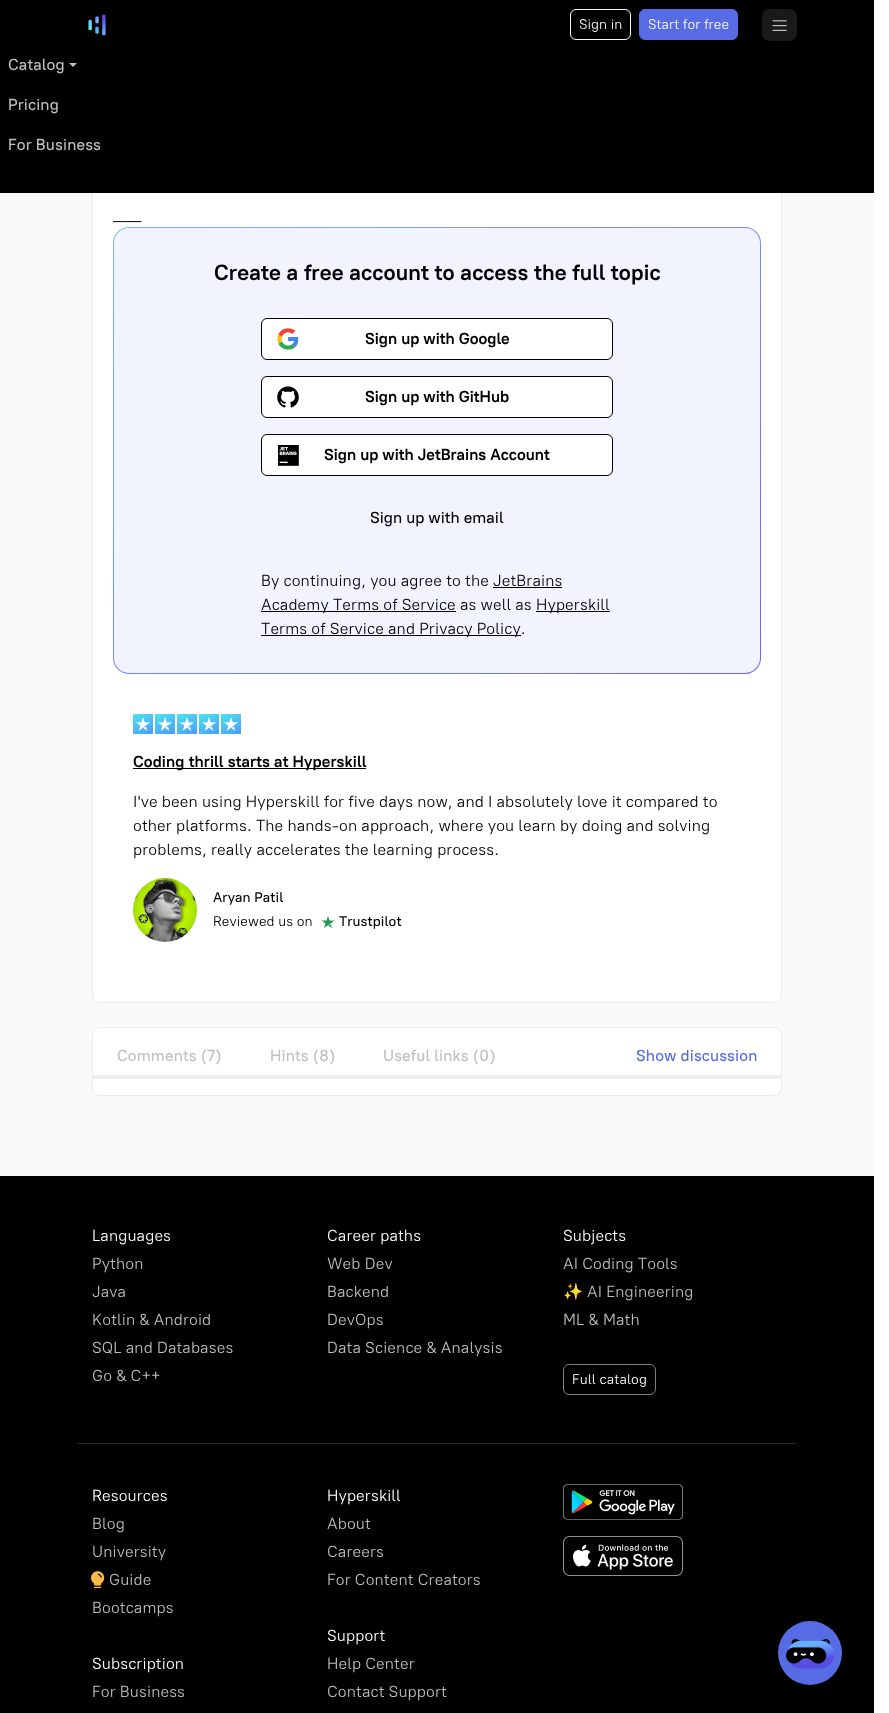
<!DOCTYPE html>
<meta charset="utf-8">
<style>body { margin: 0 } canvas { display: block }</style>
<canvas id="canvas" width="889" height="1713"></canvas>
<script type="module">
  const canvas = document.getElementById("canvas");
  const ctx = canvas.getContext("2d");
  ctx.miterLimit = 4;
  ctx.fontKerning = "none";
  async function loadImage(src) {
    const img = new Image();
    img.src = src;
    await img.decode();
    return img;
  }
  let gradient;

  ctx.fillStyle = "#ffffff";
  ctx.fillRect(0, 0, 889, 1713);
  ctx.fillStyle = "#fafafa";
  ctx.fillRect(0, 193, 874, 983);
  ctx.fillStyle = "#ffffff";
  ctx.beginPath();
  ctx.roundRect(92.5, 182.5, 689, 820, 7.5);
  ctx.fill();
  ctx.strokeStyle = "#ededed";
  ctx.stroke();
  ctx.fillStyle = "#000000";
  ctx.fillRect(0, 0, 874, 193);
  ctx.drawImage(await loadImage("img1.png"), 88, 14, 18, 22);
  ctx.beginPath();
  ctx.roundRect(570.5, 9.5, 60, 30, 5.5);
  ctx.strokeStyle = "#f8f9fa";
  ctx.stroke();
  ctx.font = "14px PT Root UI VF";
  ctx.fillStyle = "#f8f9fa";
  ctx.fillText("Sign in", 579, 29);
  ctx.fillStyle = "#566be4";
  ctx.beginPath();
  ctx.roundRect(639.5, 9.5, 98, 30, 5.5);
  ctx.fill();
  ctx.strokeStyle = "#566be4";
  ctx.stroke();
  ctx.fillStyle = "#ffffff";
  ctx.fillText("Start for free", 648, 29);
  ctx.fillStyle = "#1a1a1a";
  ctx.beginPath();
  ctx.roundRect(762, 9, 35, 32, 8);
  ctx.fill();
  ctx.drawImage(await loadImage("img2.png"), 772, 20, 15, 11);
  ctx.letterSpacing = "0.1px";
  ctx.font = "500 16px PT Root UI VF";
  ctx.fillStyle = "#bfbfbf";
  ctx.fillText("Catalog", 8, 70);
  ctx.beginPath();
  ctx.moveTo(69, 63);
  ctx.lineTo(77, 63);
  ctx.lineTo(73, 67);
  ctx.closePath();
  ctx.fill();
  ctx.fillText("Pricing", 8, 110);
  ctx.fillText("For Business", 8, 150);
  ctx.font = "16px PT Root UI VF";
  ctx.fillStyle = "#000000";
  ctx.fillText("___", 113, 220);
  gradient = ctx.createLinearGradient(228, 148, 646, 753);
  gradient.addColorStop(0, "#7ab7fe");
  gradient.addColorStop(1, "#6c63ff");
  ctx.fillStyle = gradient;
  ctx.beginPath();
  ctx.roundRect(113, 227, 648, 447, 16);
  ctx.fill();
  ctx.fillStyle = "#f1f3ff";
  ctx.beginPath();
  ctx.roundRect(114, 228, 646, 445, 15);
  ctx.fill();
  ctx.font = "bold 22px PT Root UI VF";
  ctx.fillStyle = "#000000";
  ctx.fillText("Create a free account to access the full topic", 214, 280);
  ctx.fillStyle = "#ffffff";
  ctx.beginPath();
  ctx.roundRect(261.5, 318.5, 351, 41, 5.5);
  ctx.fill();
  ctx.strokeStyle = "#000000";
  ctx.stroke();
  ctx.drawImage(await loadImage("img3.png"), 277, 328, 22, 22);
  ctx.letterSpacing = "0px";
  ctx.font = "bold 16px PT Root UI VF";
  ctx.fillStyle = "#000000";
  ctx.fillText("Sign up with Google", 365, 344);
  ctx.fillStyle = "#ffffff";
  ctx.beginPath();
  ctx.roundRect(261.5, 376.5, 351, 41, 5.5);
  ctx.fill();
  ctx.stroke();
  ctx.drawImage(await loadImage("img4.png"), 277, 386, 22, 22);
  ctx.fillStyle = "#000000";
  ctx.fillText("Sign up with GitHub", 365, 402);
  ctx.fillStyle = "#ffffff";
  ctx.beginPath();
  ctx.roundRect(261.5, 434.5, 351, 41, 5.5);
  ctx.fill();
  ctx.stroke();
  ctx.drawImage(await loadImage("img5.png"), 278, 445, 21, 21);
  ctx.fillStyle = "#000000";
  ctx.fillText("Sign up with JetBrains Account", 324, 460);
  ctx.font = "500 16px PT Root UI VF";
  ctx.fillText("Sign up with email", 370, 523);
  ctx.letterSpacing = "0.1px";
  ctx.font = "16px PT Root UI VF";
  ctx.fillText("By continuing, you agree to the JetBrains", 261, 586);
  ctx.fillRect(261, 611, 195, 1);
  ctx.fillText("Academy Terms of Service as well as", 261, 610);
  ctx.fillRect(493, 587, 69, 1);
  ctx.fillRect(536, 611, 74, 1);
  ctx.fillText("Hyperskill", 536, 610);
  ctx.fillRect(261, 635, 260, 1);
  ctx.fillText("Terms of Service and Privacy Policy.", 261, 634);
  ctx.drawImage(await loadImage("img6.png"), 133, 714, 20, 20);
  ctx.drawImage(await loadImage("img6.png"), 155, 714, 20, 20);
  ctx.drawImage(await loadImage("img6.png"), 177, 714, 20, 20);
  ctx.drawImage(await loadImage("img6.png"), 199, 714, 20, 20);
  ctx.drawImage(await loadImage("img6.png"), 221, 714, 20, 20);
  ctx.fillRect(133, 768, 233, 1);
  ctx.font = "bold 16px PT Root UI VF";
  ctx.fillText("Coding thrill starts at Hyperskill", 133, 767);
  ctx.font = "16px PT Root UI VF";
  ctx.fillText("I've been using Hyperskill for five days now, and I absolutely love it compared to", 133, 807);
  ctx.fillText("other platforms. The hands-on approach, where you learn by doing and solving", 133, 831);
  ctx.fillText("problems, really accelerates the learning process.", 133, 855);
  ctx.drawImage(await loadImage("img7.png"), 133, 878, 64, 64);
  ctx.font = "500 14px PT Root UI VF";
  ctx.fillText("Aryan Patil", 213, 902);
  ctx.font = "14px PT Root UI VF";
  ctx.fillText("Reviewed us on", 213, 926);
  ctx.drawImage(await loadImage("img8.png"), 321, 916, 14, 12);
  ctx.font = "500 14px PT Root UI VF";
  ctx.fillText("Trustpilot", 339, 926);
  ctx.fillStyle = "#ffffff";
  ctx.beginPath();
  ctx.roundRect(92.5, 1027.5, 689, 68, 7.5);
  ctx.fill();
  ctx.strokeStyle = "#ededed";
  ctx.stroke();
  ctx.fillStyle = "#ededed";
  ctx.fillRect(93, 1075, 688, 4);
  ctx.font = "500 16px PT Root UI VF";
  ctx.fillStyle = "#bfbfbf";
  ctx.fillText("Comments (7)", 117, 1061);
  ctx.fillText("Hints (8)", 270, 1061);
  ctx.fillText("Useful links (0)", 383, 1061);
  ctx.fillStyle = "#566be4";
  ctx.fillText("Show discussion", 636, 1061);
  ctx.fillStyle = "#000000";
  ctx.fillRect(0, 1176, 874, 537);
  ctx.fillStyle = "#566be4";
  ctx.beginPath();
  ctx.arc(810, 1653, 32, 0, Math.PI * 2);
  ctx.fill();
  ctx.drawImage(await loadImage("img9.png"), 786, 1639, 48, 30);
  ctx.font = "16px PT Root UI VF";
  ctx.fillStyle = "#ffffff";
  ctx.fillText("Languages", 92, 1241);
  ctx.fillStyle = "#bfbfbf";
  ctx.fillText("Python", 92, 1269);
  ctx.fillText("Java", 92, 1297);
  ctx.fillText("Kotlin & Android", 92, 1325);
  ctx.fillText("SQL and Databases", 92, 1353);
  ctx.fillText("Go & C++", 92, 1381);
  ctx.fillStyle = "#ffffff";
  ctx.fillText("Career paths", 327, 1241);
  ctx.fillStyle = "#bfbfbf";
  ctx.fillText("Web Dev", 327, 1269);
  ctx.fillText("Backend", 327, 1297);
  ctx.fillText("DevOps", 327, 1325);
  ctx.fillText("Data Science & Analysis", 327, 1353);
  ctx.fillStyle = "#ffffff";
  ctx.fillText("Subjects", 563, 1241);
  ctx.fillStyle = "#bfbfbf";
  ctx.fillText("AI Coding Tools", 563, 1269);
  ctx.font = "16px Noto Color Emoji";
  ctx.fillText("✨", 563, 1297);
  ctx.font = "16px PT Root UI VF";
  ctx.fillText("AI Engineering", 587, 1297);
  ctx.fillText("ML & Math", 563, 1325);
  ctx.beginPath();
  ctx.roundRect(563.5, 1364.5, 92, 30, 5.5);
  ctx.strokeStyle = "#808080";
  ctx.stroke();
  ctx.font = "14px PT Root UI VF";
  ctx.fillStyle = "#ffffff";
  ctx.fillText("Full catalog", 572, 1384);
  ctx.fillStyle = "#262626";
  ctx.fillRect(77, 1443, 720, 1);
  ctx.font = "16px PT Root UI VF";
  ctx.fillStyle = "#ffffff";
  ctx.fillText("Resources", 92, 1501);
  ctx.fillStyle = "#bfbfbf";
  ctx.fillText("Blog", 92, 1529);
  ctx.fillText("University", 92, 1557);
  ctx.drawImage(await loadImage("img10.png"), 91, 1571, 14, 17);
  ctx.fillText("Guide", 109, 1585);
  ctx.fillText("Bootcamps", 92, 1613);
  ctx.fillStyle = "#ffffff";
  ctx.fillText("Subscription", 92, 1669);
  ctx.fillStyle = "#bfbfbf";
  ctx.fillText("For Business", 92, 1697);
  ctx.fillStyle = "#ffffff";
  ctx.fillText("Hyperskill", 327, 1501);
  ctx.fillStyle = "#bfbfbf";
  ctx.fillText("About", 327, 1529);
  ctx.fillText("Careers", 327, 1557);
  ctx.fillText("For Content Creators", 327, 1585);
  ctx.fillStyle = "#ffffff";
  ctx.fillText("Support", 327, 1641);
  ctx.fillStyle = "#bfbfbf";
  ctx.fillText("Help Center", 327, 1669);
  ctx.fillText("Contact Support", 327, 1697);
  ctx.drawImage(await loadImage("img11.png"), 563, 1484, 120, 36);
  ctx.drawImage(await loadImage("img12.png"), 563, 1536, 120, 40);
</script>
